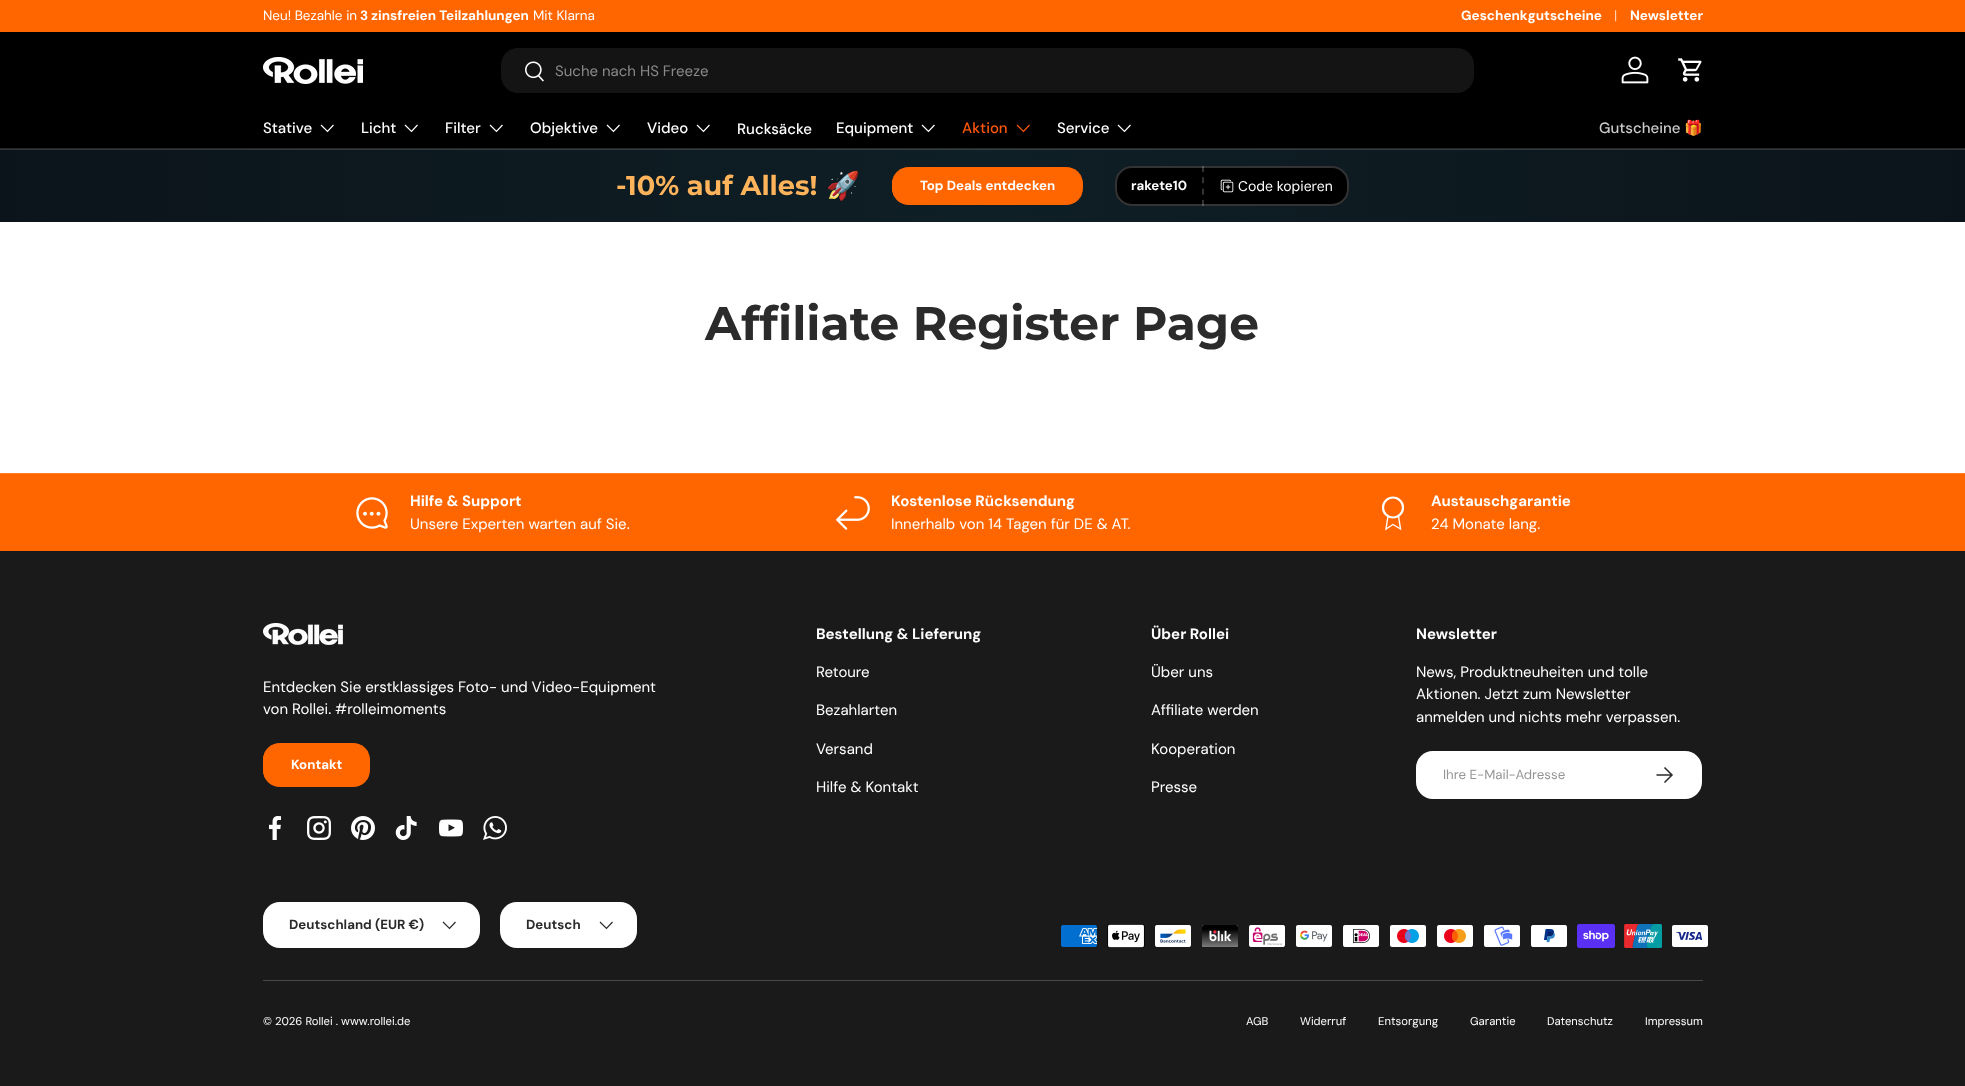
<!DOCTYPE html>
<meta charset="utf-8">
<style>body { margin: 0 } canvas { display: block }</style>
<canvas id="canvas" width="1965" height="1086"></canvas>
<script type="module">
  const canvas = document.getElementById("canvas");
  const ctx = canvas.getContext("2d");
  ctx.miterLimit = 4;
  ctx.fontKerning = "normal";
  async function loadImage(src) {
    const img = new Image();
    img.src = src;
    await img.decode();
    return img;
  }
  let gradient;

  ctx.fillStyle = "#ffffff";
  ctx.fillRect(0, 0, 1965, 1086);
  ctx.fillStyle = "#ff6600";
  ctx.fillRect(0, 0, 1965, 32);
  ctx.font = "13.5px 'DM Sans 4'";
  ctx.fillStyle = "#ffffff";
  ctx.fillText("Neu! Bezahle in", 263, 20);
  ctx.font = "bold 13.5px 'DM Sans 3'";
  ctx.fillText("3 zinsfreien Teilzahlungen", 360, 20);
  ctx.font = "13.5px 'DM Sans 4'";
  ctx.fillText("Mit Klarna", 533, 20);
  ctx.font = "bold 13.5px 'DM Sans 3'";
  ctx.fillText("Geschenkgutscheine", 1461, 20);
  ctx.font = "13.5px 'DM Sans 4'";
  ctx.fillStyle = "#ffd1b3";
  ctx.fillText("|", 1614, 20);
  ctx.font = "bold 13.5px 'DM Sans 3'";
  ctx.fillStyle = "#ffffff";
  ctx.fillText("Newsletter", 1630, 20);
  ctx.fillStyle = "#000000";
  ctx.fillRect(0, 32, 1965, 116);
  ctx.fillStyle = "#262626";
  ctx.fillRect(0, 148, 1965, 1);
  ctx.drawImage(await loadImage("img1.png"), 263, 57, 100, 27);
  ctx.fillStyle = "#141414";
  ctx.beginPath();
  ctx.roundRect(501, 48, 973, 45, 17);
  ctx.fill();
  ctx.drawImage(await loadImage("img2.png"), 525, 61, 19, 21);
  ctx.font = "15px 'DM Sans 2'";
  ctx.fillStyle = "#8a8a8a";
  ctx.fillText("Suche nach HS Freeze", 555, 76);
  ctx.drawImage(await loadImage("img3.png"), 1621, 56, 28, 28);
  ctx.drawImage(await loadImage("img4.png"), 1678, 58, 24, 24);
  ctx.font = "500 15px DM Sans";
  ctx.fillStyle = "#ffffff";
  ctx.fillText("Stative", 263, 133);
  ctx.beginPath();
  ctx.moveTo(333.5, 125);
  ctx.lineTo(327.5, 131.5);
  ctx.lineTo(321, 125);
  ctx.strokeStyle = "#ffffff";
  ctx.lineWidth = 1.2;
  ctx.stroke();
  ctx.fillText("Licht", 361, 133);
  ctx.beginPath();
  ctx.moveTo(417.5, 125);
  ctx.lineTo(411.5, 131.5);
  ctx.lineTo(405, 125);
  ctx.stroke();
  ctx.fillText("Filter", 445, 133);
  ctx.beginPath();
  ctx.moveTo(502.5, 125);
  ctx.lineTo(496.5, 131.5);
  ctx.lineTo(490, 125);
  ctx.stroke();
  ctx.fillText("Objektive", 530, 133);
  ctx.beginPath();
  ctx.moveTo(619.5, 125);
  ctx.lineTo(613.5, 131.5);
  ctx.lineTo(607, 125);
  ctx.stroke();
  ctx.fillText("Video", 647, 133);
  ctx.beginPath();
  ctx.moveTo(709.5, 125);
  ctx.lineTo(703.5, 131.5);
  ctx.lineTo(697, 125);
  ctx.stroke();
  ctx.fillText("Rucksäcke", 737, 134);
  ctx.fillText("Equipment", 836, 133);
  ctx.beginPath();
  ctx.moveTo(934.5, 125);
  ctx.lineTo(928.5, 131.5);
  ctx.lineTo(922, 125);
  ctx.stroke();
  ctx.fillStyle = "#ff580d";
  ctx.fillText("Aktion", 962, 133);
  ctx.beginPath();
  ctx.moveTo(1029.5, 125);
  ctx.lineTo(1023.5, 131.5);
  ctx.lineTo(1017, 125);
  ctx.strokeStyle = "#ff580d";
  ctx.stroke();
  ctx.fillStyle = "#ffffff";
  ctx.fillText("Service", 1057, 133);
  ctx.beginPath();
  ctx.moveTo(1130.5, 125);
  ctx.lineTo(1124.5, 131.5);
  ctx.lineTo(1118, 125);
  ctx.strokeStyle = "#ffffff";
  ctx.stroke();
  ctx.fillStyle = "#cccccc";
  ctx.fillText("Gutscheine", 1599, 133);
  ctx.font = "15px Noto Color Emoji";
  ctx.fillText("🎁", 1684, 133);
  gradient = ctx.createLinearGradient(0, 186, 1965, 186);
  gradient.addColorStop(0, "#0b141a");
  gradient.addColorStop(0.5, "#0f1f26");
  gradient.addColorStop(1, "#0b141a");
  ctx.fillStyle = gradient;
  ctx.fillRect(0, 150, 1965, 72);
  gradient = ctx.createLinearGradient(0, 186, 1965, 186);
  gradient.addColorStop(0, "#30373c");
  gradient.addColorStop(0.5, "#334147");
  gradient.addColorStop(1, "#30373c");
  ctx.fillStyle = gradient;
  ctx.fillRect(0, 149, 1965, 1);
  ctx.font = "bold 27.25px Montserrat";
  ctx.fillStyle = "#ffb45c";
  ctx.fillText("-10% auf Alles!", 616, 195);
  ctx.font = "bold 27.25px Noto Color Emoji";
  ctx.fillText("🚀", 826, 195);
  ctx.save();
  ctx.beginPath();
  ctx.roundRect(892, 167, 191, 38, 17);
  ctx.clip();
  gradient = ctx.createLinearGradient(532, 119, 1069, 253);
  gradient.addColorStop(0.6, "#ff8635");
  gradient.addColorStop(0.6, "#ff6600");
  gradient.addColorStop(1, "#ff6600");
  ctx.fillStyle = gradient;
  ctx.fillRect(892, 169, 189, 34);
  ctx.restore();
  ctx.beginPath();
  ctx.roundRect(893, 168, 189, 36, 16);
  ctx.strokeStyle = "#ff6600";
  ctx.lineWidth = 2;
  ctx.stroke();
  ctx.font = "bold 13.25px DM Sans";
  ctx.fillStyle = "#ffffff";
  ctx.fillText("Top Deals entdecken", 920, 190);
  ctx.fillStyle = "#000000";
  ctx.beginPath();
  ctx.roundRect(1115, 166, 234, 40, 17);
  ctx.fill();
  ctx.beginPath();
  ctx.roundRect(1116, 167, 232, 38, 16);
  ctx.strokeStyle = "rgba(255, 255, 255, 0.2)";
  ctx.stroke();
  ctx.fillStyle = "#ffffff";
  ctx.fillText("rakete10", 1131, 190);
  ctx.beginPath();
  ctx.moveTo(1203, 166);
  ctx.lineTo(1203, 206);
  ctx.setLineDash([6, 5.33]);
  ctx.stroke();
  ctx.drawImage(await loadImage("img5.png"), 1220, 179, 14, 14);
  ctx.font = "14px DM Sans";
  ctx.fillText("Code kopieren", 1238, 191);
  ctx.font = "bold 47.25px Montserrat";
  ctx.fillStyle = "#2a2b2a";
  ctx.fillText("Affiliate Register Page", 705, 340);
  ctx.fillStyle = "#ff6600";
  ctx.fillRect(0, 474, 1965, 77);
  ctx.fillStyle = "#ff7d26";
  ctx.fillRect(0, 473, 1965, 1);
  ctx.drawImage(await loadImage("img6.png"), 356, 497, 32, 32);
  ctx.font = "bold 15px 'DM Sans 2'";
  ctx.fillStyle = "#ffffff";
  ctx.fillText("Hilfe & Support", 410, 506);
  ctx.font = "15px 'DM Sans 2'";
  ctx.fillText("Unsere Experten warten auf Sie.", 410, 529);
  ctx.drawImage(await loadImage("img7.png"), 836, 496, 34, 34);
  ctx.font = "bold 15px 'DM Sans 2'";
  ctx.fillText("Kostenlose Rücksendung", 891, 506);
  ctx.font = "15px 'DM Sans 2'";
  ctx.fillText("Innerhalb von 14 Tagen für DE & AT.", 891, 529);
  ctx.beginPath();
  ctx.arc(1393, 507.5, 10, 0, Math.PI * 2);
  ctx.strokeStyle = "#ffffff";
  ctx.lineWidth = 2.2;
  ctx.setLineDash([]);
  ctx.stroke();
  ctx.beginPath();
  ctx.moveTo(1388, 516);
  ctx.lineTo(1386, 529);
  ctx.lineTo(1393, 524.5);
  ctx.lineTo(1400.5, 529);
  ctx.lineTo(1398.5, 516);
  ctx.lineWidth = 1.4;
  ctx.stroke();
  ctx.font = "bold 15px 'DM Sans 2'";
  ctx.fillText("Austauschgarantie", 1431, 506);
  ctx.font = "15px 'DM Sans 2'";
  ctx.fillText("24 Monate lang.", 1431, 529);
  ctx.fillStyle = "#1a1a1a";
  ctx.fillRect(0, 551, 1965, 535);
  ctx.drawImage(await loadImage("img8.png"), 263, 623, 80, 22);
  ctx.fillStyle = "#ffffff";
  ctx.fillText("Entdecken Sie erstklassiges Foto- und Video-Equipment", 263, 692);
  ctx.fillText("von Rollei. #rolleimoments", 263, 714);
  ctx.save();
  ctx.beginPath();
  ctx.roundRect(263, 743, 107, 44, 17);
  ctx.clip();
  gradient = ctx.createLinearGradient(63, 728, 364, 802);
  gradient.addColorStop(0.6, "#ff8635");
  gradient.addColorStop(0.6, "#ff6600");
  gradient.addColorStop(1, "#ff6600");
  ctx.fillStyle = gradient;
  ctx.fillRect(263, 745, 105, 40);
  ctx.restore();
  ctx.beginPath();
  ctx.roundRect(264, 744, 105, 42, 16);
  ctx.strokeStyle = "#ff6600";
  ctx.lineWidth = 2;
  ctx.stroke();
  ctx.font = "bold 13.25px DM Sans";
  ctx.fillText("Kontakt", 291, 769);
  ctx.drawImage(await loadImage("img9.png"), 269, 816, 12, 24);
  ctx.drawImage(await loadImage("img10.png"), 307, 816, 24, 24);
  ctx.drawImage(await loadImage("img11.png"), 351, 816, 24, 24);
  ctx.drawImage(await loadImage("img12.png"), 395, 816, 22, 24);
  ctx.drawImage(await loadImage("img13.png"), 439, 819, 24, 18);
  ctx.drawImage(await loadImage("img14.png"), 483, 816, 24, 24);
  ctx.font = "bold 15px 'DM Sans 2'";
  ctx.fillText("Bestellung & Lieferung", 816, 639);
  ctx.font = "15px 'DM Sans 2'";
  ctx.fillText("Retoure", 816, 677);
  ctx.fillText("Bezahlarten", 816, 715);
  ctx.fillText("Versand", 816, 754);
  ctx.fillText("Hilfe & Kontakt", 816, 792);
  ctx.font = "bold 15px 'DM Sans 2'";
  ctx.fillText("Über Rollei", 1151, 639);
  ctx.font = "15px 'DM Sans 2'";
  ctx.fillText("Über uns", 1151, 677);
  ctx.fillText("Affiliate werden", 1151, 715);
  ctx.fillText("Kooperation", 1151, 754);
  ctx.fillText("Presse", 1151, 792);
  ctx.font = "bold 15px 'DM Sans 2'";
  ctx.fillText("Newsletter", 1416, 639);
  ctx.font = "15px 'DM Sans 2'";
  ctx.fillText("News, Produktneuheiten und tolle", 1416, 677);
  ctx.fillText("Aktionen. Jetzt zum Newsletter", 1416, 699);
  ctx.fillText("anmelden und nichts mehr verpassen.", 1416, 722);
  ctx.beginPath();
  ctx.roundRect(1416, 751, 286, 48, 17);
  ctx.fill();
  ctx.beginPath();
  ctx.roundRect(1417, 752, 284, 46, 16);
  ctx.strokeStyle = "rgba(255, 255, 255, 0.2)";
  ctx.stroke();
  ctx.font = "13.25px 'DM Sans 3'";
  ctx.fillStyle = "#959595";
  ctx.fillText("Ihre E-Mail-Adresse", 1443, 779);
  ctx.beginPath();
  ctx.moveTo(1656.5, 775);
  ctx.lineTo(1671.5, 775);
  ctx.moveTo(1664.5, 767.5);
  ctx.lineTo(1672, 775);
  ctx.lineTo(1664.5, 782.5);
  ctx.strokeStyle = "#2a2b2a";
  ctx.lineWidth = 1.5;
  ctx.stroke();
  ctx.fillStyle = "#ffffff";
  ctx.beginPath();
  ctx.roundRect(263, 902, 217, 46, 17);
  ctx.fill();
  ctx.beginPath();
  ctx.roundRect(264, 903, 215, 44, 16);
  ctx.strokeStyle = "rgba(255, 255, 255, 0.2)";
  ctx.lineWidth = 2;
  ctx.stroke();
  ctx.font = "bold 13.25px DM Sans";
  ctx.fillStyle = "#2a2b2a";
  ctx.fillText("Deutschland (EUR €)", 289, 929);
  ctx.beginPath();
  ctx.moveTo(455.5, 922);
  ctx.lineTo(449.5, 928.5);
  ctx.lineTo(443, 922);
  ctx.strokeStyle = "#2a2b2a";
  ctx.lineWidth = 1.2;
  ctx.stroke();
  ctx.fillStyle = "#ffffff";
  ctx.beginPath();
  ctx.roundRect(500, 902, 137, 46, 17);
  ctx.fill();
  ctx.beginPath();
  ctx.roundRect(501, 903, 135, 44, 16);
  ctx.strokeStyle = "rgba(255, 255, 255, 0.2)";
  ctx.lineWidth = 2;
  ctx.stroke();
  ctx.fillStyle = "#2a2b2a";
  ctx.fillText("Deutsch", 526, 929);
  ctx.beginPath();
  ctx.moveTo(612.5, 922);
  ctx.lineTo(606.5, 928.5);
  ctx.lineTo(600, 922);
  ctx.strokeStyle = "#2a2b2a";
  ctx.lineWidth = 1.2;
  ctx.stroke();
  ctx.drawImage(await loadImage("img15.png"), 1061, 925, 36, 22);
  ctx.drawImage(await loadImage("img16.png"), 1107, 924, 38, 24);
  ctx.drawImage(await loadImage("img17.png"), 1155, 925, 36, 22);
  ctx.drawImage(await loadImage("img18.png"), 1202, 925, 36, 22);
  ctx.drawImage(await loadImage("img19.png"), 1249, 925, 36, 22);
  ctx.drawImage(await loadImage("img20.png"), 1296, 925, 36, 22);
  ctx.drawImage(await loadImage("img21.png"), 1343, 925, 36, 22);
  ctx.drawImage(await loadImage("img22.png"), 1390, 925, 36, 22);
  ctx.drawImage(await loadImage("img23.png"), 1437, 925, 36, 22);
  ctx.drawImage(await loadImage("img24.png"), 1484, 925, 36, 22);
  ctx.drawImage(await loadImage("img25.png"), 1531, 925, 36, 22);
  ctx.drawImage(await loadImage("img26.png"), 1577, 924, 38, 24);
  ctx.drawImage(await loadImage("img27.png"), 1624, 924, 38, 24);
  ctx.drawImage(await loadImage("img28.png"), 1672, 925, 36, 22);
  ctx.fillStyle = "#484848";
  ctx.fillRect(263, 980, 1440, 1);
  ctx.font = "11.25px DM Sans";
  ctx.fillStyle = "#ffffff";
  ctx.fillText("© 2026 Rollei . www.rollei.de", 263, 1025);
  ctx.fillText("AGB", 1246, 1025);
  ctx.fillText("Widerruf", 1300, 1025);
  ctx.fillText("Entsorgung", 1378, 1025);
  ctx.fillText("Garantie", 1470, 1025);
  ctx.fillText("Datenschutz", 1547, 1025);
  ctx.fillText("Impressum", 1645, 1025);
</script>
